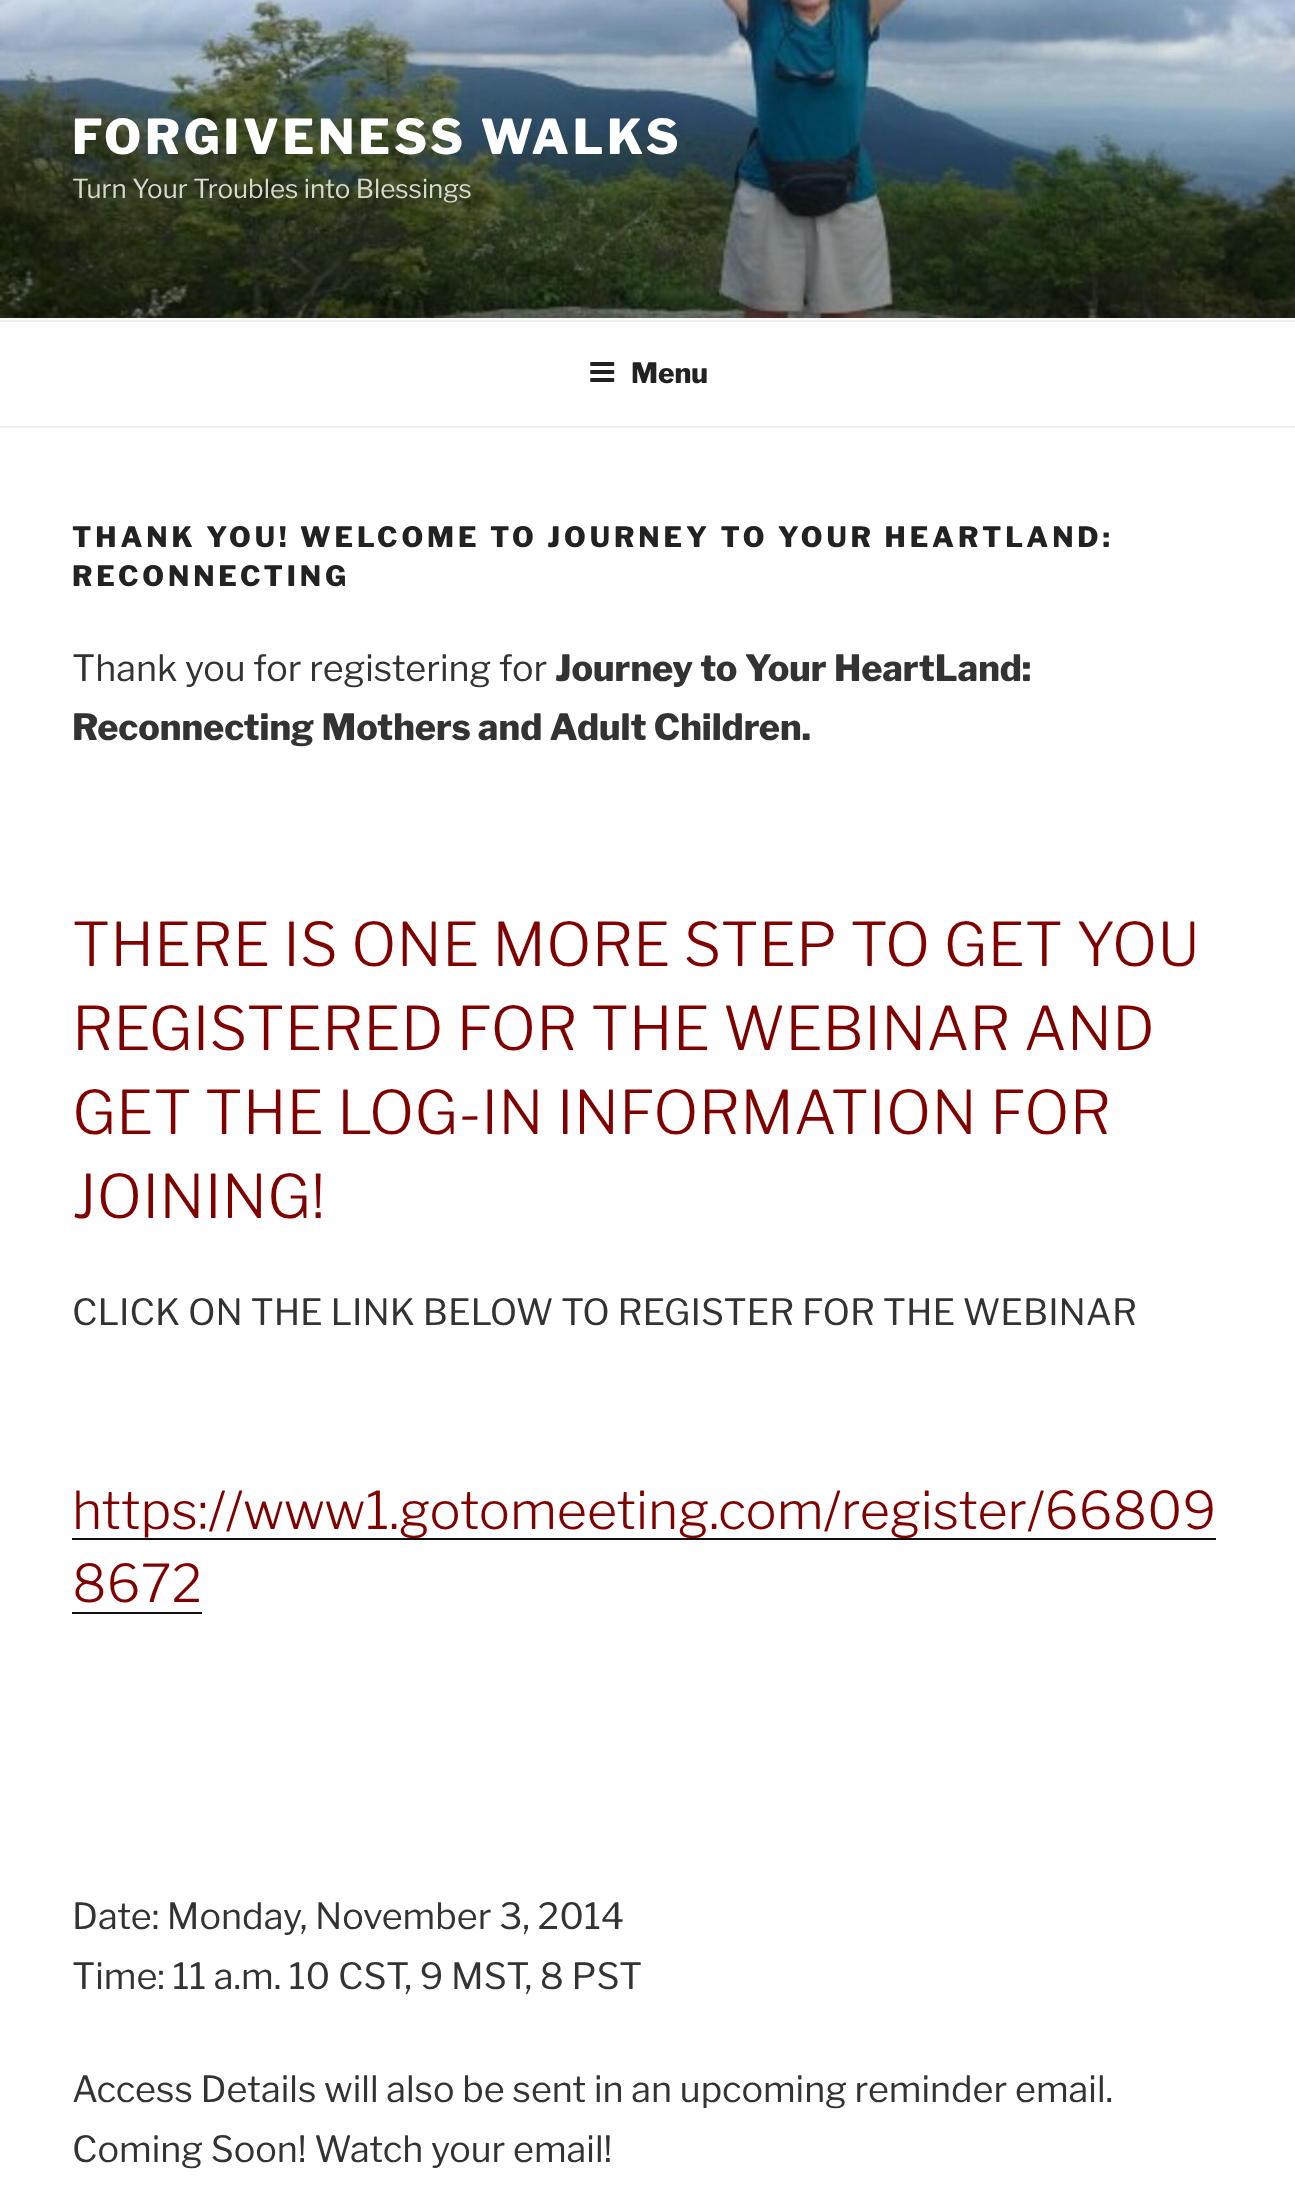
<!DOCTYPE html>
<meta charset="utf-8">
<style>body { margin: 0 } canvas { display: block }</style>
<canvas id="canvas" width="1295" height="2211"></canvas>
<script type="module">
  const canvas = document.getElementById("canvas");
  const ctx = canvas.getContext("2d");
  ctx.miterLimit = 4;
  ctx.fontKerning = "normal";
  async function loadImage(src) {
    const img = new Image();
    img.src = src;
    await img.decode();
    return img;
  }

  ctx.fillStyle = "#ffffff";
  ctx.fillRect(0, 0, 1295, 2211);
  ctx.fillStyle = "#fafafa";
  ctx.fillRect(0, 318, 1295, 2);
  ctx.drawImage(await loadImage("img1.png"), 0, 0, 1295, 318);
  ctx.letterSpacing = "3.8px";
  ctx.font = "100 48px Libre Franklin";
  ctx.fillStyle = "#ffffff";
  ctx.fillText("FORGIVENESS WALKS", 72, 154);
  ctx.letterSpacing = "0px";
  ctx.font = "100 26px 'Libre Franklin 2'";
  ctx.fillStyle = "#d6d8d2";
  ctx.fillText("Turn Your Troubles into Blessings", 72, 198);
  ctx.fillStyle = "#eeeeee";
  ctx.fillRect(0, 320, 1295, 2);
  ctx.fillRect(0, 426, 1295, 2);
  ctx.drawImage(await loadImage("img2.png"), 590, 362, 25, 20);
  ctx.font = "100 28px Libre Franklin";
  ctx.fillStyle = "#222222";
  ctx.fillText("Menu", 631, 383);
  ctx.letterSpacing = "3.9px";
  ctx.fillText("THANK YOU! WELCOME TO JOURNEY TO YOUR HEARTLAND:", 72, 547);
  ctx.fillText("RECONNECTING", 72, 586);
  ctx.letterSpacing = "0px";
  ctx.font = "100 36px 'Libre Franklin 2'";
  ctx.fillStyle = "#333333";
  ctx.fillText("Thank you for registering for", 72, 681);
  ctx.font = "100 36px Libre Franklin";
  ctx.fillText("Journey to Your HeartLand:", 555, 681);
  ctx.fillText("Reconnecting Mothers and Adult Children.", 72, 740);
  ctx.font = "100 60px 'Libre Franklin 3'";
  ctx.fillStyle = "#800000";
  ctx.fillText("THERE IS ONE MORE STEP TO GET YOU", 72, 966);
  ctx.fillText("REGISTERED FOR THE WEBINAR AND", 72, 1050);
  ctx.fillText("GET THE LOG-IN INFORMATION FOR", 72, 1134);
  ctx.fillText("JOINING!", 72, 1218);
  ctx.font = "100 36px 'Libre Franklin 2'";
  ctx.fillStyle = "#333333";
  ctx.fillText("CLICK ON THE LINK BELOW TO REGISTER FOR THE WEBINAR", 72, 1325);
  ctx.fillStyle = "#0f0f0f";
  ctx.fillRect(72, 1538, 1144, 2);
  ctx.font = "100 52px 'Libre Franklin 3'";
  ctx.fillStyle = "#800000";
  ctx.fillText("https://www1.gotomeeting.com/register/66809", 72, 1529);
  ctx.fillText("8672", 72, 1602);
  ctx.fillStyle = "#0f0f0f";
  ctx.fillRect(72, 1612, 130, 2);
  ctx.font = "100 36px 'Libre Franklin 2'";
  ctx.fillStyle = "#333333";
  ctx.fillText("Date: Monday, November 3, 2014", 72, 1929);
  ctx.fillText("Time: 11 a.m. 10 CST, 9 MST, 8 PST", 72, 1989);
  ctx.fillText("Access Details will also be sent in an upcoming reminder email.", 72, 2102);
  ctx.fillText("Coming Soon! Watch your email!", 72, 2162);
</script>
